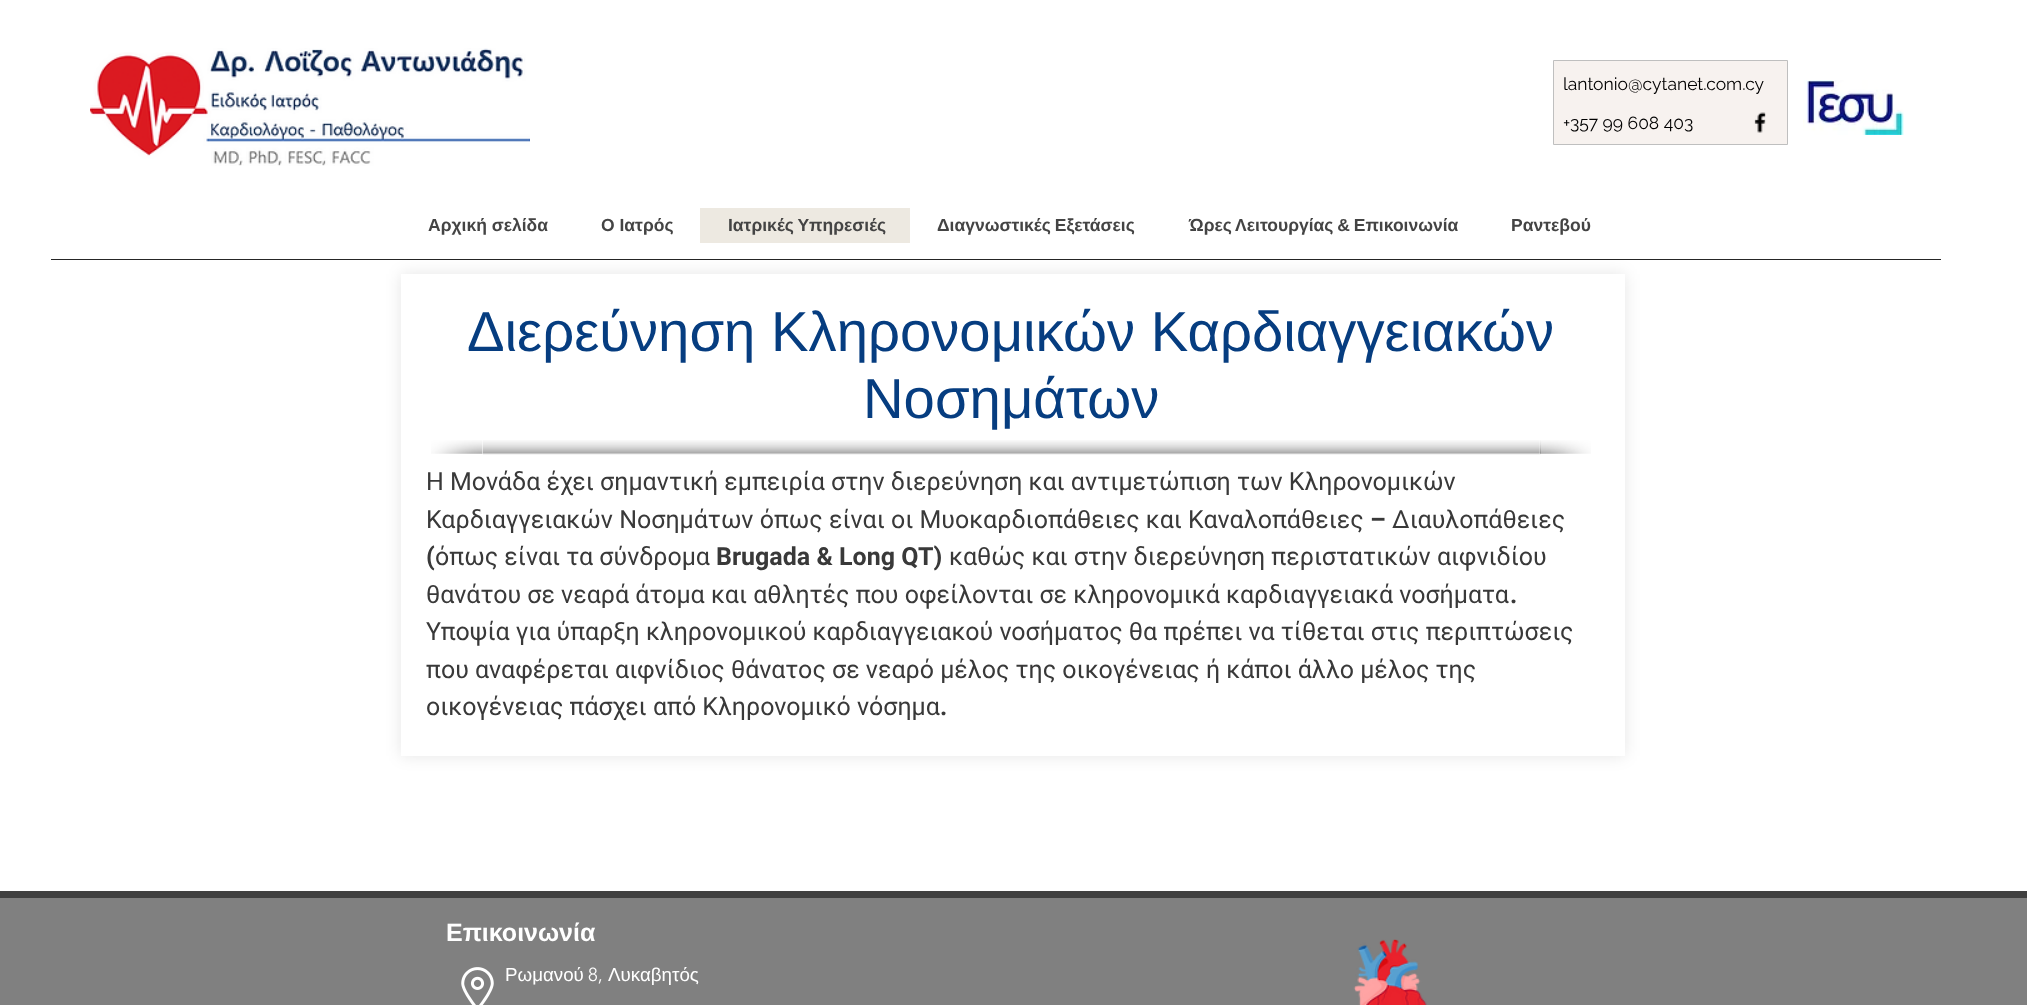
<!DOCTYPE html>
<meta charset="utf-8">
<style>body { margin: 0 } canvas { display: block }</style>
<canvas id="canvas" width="2027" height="1005"></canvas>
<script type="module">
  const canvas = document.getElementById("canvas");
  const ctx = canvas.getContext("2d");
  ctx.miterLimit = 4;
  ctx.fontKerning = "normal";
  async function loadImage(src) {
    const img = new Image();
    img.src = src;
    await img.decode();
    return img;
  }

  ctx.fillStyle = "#ffffff";
  ctx.fillRect(0, 0, 2027, 1005);
  ctx.drawImage(await loadImage("img1.png"), 90, 48, 440, 118);
  ctx.fillStyle = "#f7f2ef";
  ctx.beginPath();
  ctx.rect(1553.5, 60.5, 234, 84);
  ctx.fill();
  ctx.strokeStyle = "#bfbfbf";
  ctx.stroke();
  ctx.font = "17.5px Raleway";
  ctx.fillStyle = "#000000";
  ctx.fillText("lantonio@cytanet.com.cy", 1563, 90);
  ctx.fillText("+357 99 608 403", 1563, 129);
  ctx.drawImage(await loadImage("img2.png"), 1754, 112, 12, 21);
  ctx.drawImage(await loadImage("img3.png"), 1803, 80, 101, 55);
  ctx.font = "bold 17.5px Liberation Sans";
  ctx.fillStyle = "#444444";
  ctx.fillText("Αρχική σελίδα", 428, 231);
  ctx.fillText("Ο Ιατρός", 601, 231);
  ctx.fillStyle = "#ede9e1";
  ctx.fillRect(700, 208, 210, 35);
  ctx.wordSpacing = "-1px";
  ctx.fillStyle = "#444444";
  ctx.fillText("Ιατρικές Υπηρεσιές", 728, 231);
  ctx.fillText("Διαγνωστικές Εξετάσεις", 937, 231);
  ctx.fillText("Ώρες Λειτουργίας & Επικοινωνία", 1189, 231);
  ctx.wordSpacing = "0px";
  ctx.fillText("Ραντεβού", 1511, 231);
  ctx.fillStyle = "#262626";
  ctx.fillRect(51, 259, 1890, 1);
  ctx.fillStyle = "rgba(0, 0, 0, 0.1)";
  ctx.filter = "blur(8px)";
  ctx.beginPath();
  ctx.rect(401, 274, 1224, 482);
  ctx.fill();
  ctx.filter = "none";
  ctx.fillStyle = "#ffffff";
  ctx.fillRect(401, 274, 1224, 482);
  ctx.font = "56.25px Liberation Sans";
  ctx.fillStyle = "#063d80";
  ctx.fillText("Διερεύνηση Κληρονομικών Καρδιαγγειακών", 467, 351);
  ctx.fillText("Νοσημάτων", 863, 418);
  ctx.drawImage(await loadImage("img4.png"), 483, 440, 1058, 15);
  ctx.drawImage(await loadImage("img5.png"), 431, 440, 52, 14);
  ctx.drawImage(await loadImage("img6.png"), 1540, 440, 51, 14);
  ctx.font = "25px Roboto";
  ctx.fillStyle = "#393939";
  ctx.fillText("Η Μονάδα έχει σημαντική εμπειρία στην διερεύνηση και αντιμετώπιση των Κληρονομικών", 426, 490);
  ctx.fillText("Καρδιαγγειακών Νοσημάτων όπως είναι οι Μυοκαρδιοπάθειες και Καναλοπάθειες", 426, 528);
  ctx.font = "bold 25px Roboto";
  ctx.fillText("–", 1370, 528);
  ctx.font = "25px Roboto";
  ctx.fillText("Διαυλοπάθειες", 1392, 528);
  ctx.font = "bold 25px Roboto";
  ctx.fillText("(", 426, 565);
  ctx.font = "25px Roboto";
  ctx.fillText("όπως είναι τα σύνδρομα", 435, 565);
  ctx.font = "bold 25px Roboto";
  ctx.fillText("Brugada & Long QT)", 716, 565);
  ctx.font = "25px Roboto";
  ctx.fillText("καθώς και στην διερεύνηση περιστατικών αιφνιδίου", 949, 565);
  ctx.fillText("θανάτου σε νεαρά άτομα και αθλητές που οφείλονται σε κληρονομικά καρδιαγγειακά νοσήματα", 426, 603);
  ctx.font = "bold 25px Roboto";
  ctx.fillText(".", 1510, 603);
  ctx.font = "25px Roboto";
  ctx.fillText("Υποψία για ύπαρξη κληρονομικού καρδιαγγειακού νοσήματος θα πρέπει να τίθεται στις περιπτώσεις", 426, 640);
  ctx.fillText("που αναφέρεται αιφνίδιος θάνατος σε νεαρό μέλος της οικογένειας ή κάποι άλλο μέλος της", 426, 678);
  ctx.fillText("οικογένειας πάσχει από Κληρονομικό νόσημα", 426, 715);
  ctx.font = "bold 25px Roboto";
  ctx.fillText(".", 940, 715);
  ctx.fillStyle = "#808080";
  ctx.fillRect(0, 898, 2027, 107);
  ctx.fillStyle = "#404040";
  ctx.fillRect(0, 891, 2027, 7);
  ctx.font = "bold 25px Liberation Sans";
  ctx.fillStyle = "#ffffff";
  ctx.fillText("Επικοινωνία", 446, 941);
  ctx.font = "18.75px Liberation Sans";
  ctx.fillText("Ρωμανού", 505, 981);
  ctx.font = "300 18.75px 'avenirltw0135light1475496'";
  ctx.fillText("8,", 588, 981);
  ctx.font = "18.75px Liberation Sans";
  ctx.fillText("Λυκαβητός", 608, 981);
  ctx.drawImage(await loadImage("img7.png"), 1353, 939, 74, 66);
  ctx.drawImage(await loadImage("img8.png"), 461, 967, 33, 38);
</script>
